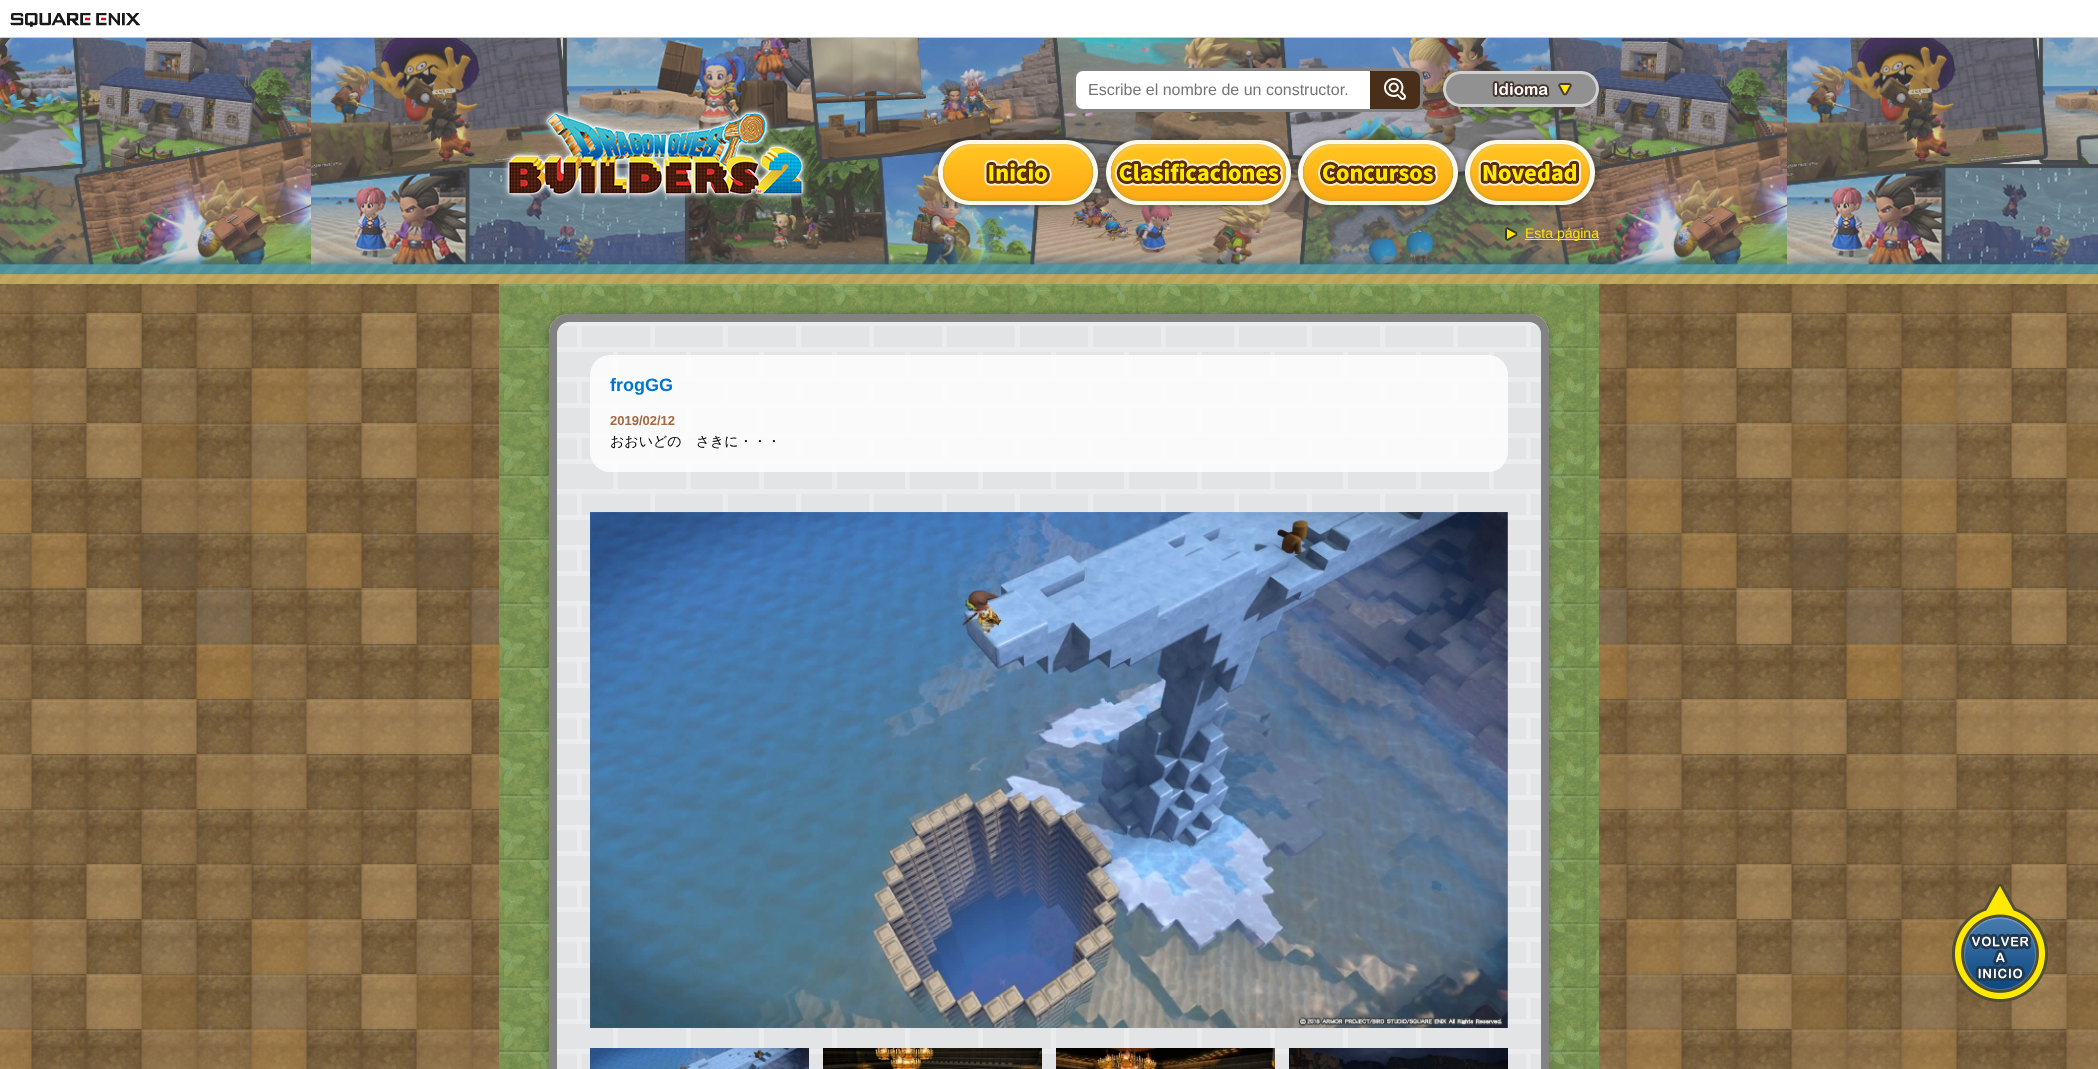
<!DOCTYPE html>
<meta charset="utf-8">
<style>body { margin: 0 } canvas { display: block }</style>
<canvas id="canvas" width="2098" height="1069"></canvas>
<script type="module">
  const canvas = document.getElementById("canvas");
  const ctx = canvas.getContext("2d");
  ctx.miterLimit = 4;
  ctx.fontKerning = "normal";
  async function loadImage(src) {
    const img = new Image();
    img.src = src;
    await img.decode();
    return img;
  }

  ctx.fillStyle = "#ffffff";
  ctx.fillRect(0, 0, 2098, 1069);
  ctx.fillStyle = "#cccccc";
  ctx.fillRect(0, 37, 2098, 1);
  ctx.drawImage(await loadImage("img1.png"), 10, 13, 130, 14);
  ctx.drawImage(await loadImage("img2.png"), 0, 284, 2098, 785);
  ctx.drawImage(await loadImage("img3.png"), 0, 38, 2098, 246);
  ctx.drawImage(await loadImage("img4.png"), 502, 106, 307, 95);
  ctx.beginPath();
  ctx.roundRect(1074.5, 69.5, 347, 41, 8.5);
  ctx.strokeStyle = "#838383";
  ctx.lineWidth = 3;
  ctx.stroke();
  ctx.fillStyle = "#ffffff";
  ctx.beginPath();
  ctx.roundRect(1076, 71, 294, 38, [7, 0, 0, 7]);
  ctx.fill();
  ctx.font = "16px Liberation Sans";
  ctx.fillStyle = "#757575";
  ctx.fillText("Escribe el nombre de un constructor.", 1088, 95);
  ctx.fillStyle = "#492e19";
  ctx.beginPath();
  ctx.roundRect(1370, 71, 50, 38, [0, 7, 7, 0]);
  ctx.fill();
  ctx.drawImage(await loadImage("img5.png"), 1384, 78, 22, 22);
  ctx.drawImage(await loadImage("img6.png"), 1443, 71, 156, 36);
  ctx.drawImage(await loadImage("img7.png"), 932, 134, 171, 78);
  ctx.drawImage(await loadImage("img8.png"), 1101, 134, 196, 78);
  ctx.drawImage(await loadImage("img9.png"), 1292, 133, 172, 78);
  ctx.drawImage(await loadImage("img10.png"), 1459, 133, 142, 78);
  ctx.drawImage(await loadImage("img11.png"), 1505, 227, 13, 14);
  ctx.fillStyle = "#fae501";
  ctx.fillRect(1525, 239, 74, 1);
  ctx.font = "14px Liberation Sans";
  ctx.fillText("Esta página", 1525, 238);
  ctx.drawImage(await loadImage("img12.png"), 499, 284, 1100, 785);
  ctx.fillStyle = "rgba(0, 0, 0, 0.3)";
  ctx.filter = "blur(5px)";
  ctx.beginPath();
  ctx.roundRect(549, 314, 1000, 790, 20);
  ctx.fill();
  ctx.filter = "none";
  ctx.fillStyle = "#e3e4e5";
  ctx.beginPath();
  ctx.roundRect(549, 314, 1000, 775, 20);
  ctx.fill();
  ctx.drawImage(await loadImage("img13.png"), 550, 321, 998, 748);
  ctx.beginPath();
  ctx.roundRect(553, 318, 992, 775, 16);
  ctx.strokeStyle = "#828282";
  ctx.lineWidth = 8;
  ctx.stroke();
  ctx.fillStyle = "rgba(255, 255, 255, 0.8)";
  ctx.beginPath();
  ctx.roundRect(590, 355, 918, 117, 20);
  ctx.fill();
  ctx.font = "bold 18px Liberation Sans";
  ctx.fillStyle = "#0074d2";
  ctx.fillText("frogGG", 610, 391);
  ctx.font = "bold 13px Liberation Sans";
  ctx.fillStyle = "#a56642";
  ctx.fillText("2019/02/12", 610, 425);
  ctx.font = "500 14px WenQuanYi Zen Hei";
  ctx.fillStyle = "#000000";
  ctx.fillText("おおいどの　さきに・・・", 610, 446);
  ctx.drawImage(await loadImage("img14.png"), 590, 512, 918, 516);
  ctx.drawImage(await loadImage("img15.png"), 590, 1048, 219, 21);
  ctx.drawImage(await loadImage("img16.png"), 823, 1048, 219, 21);
  ctx.drawImage(await loadImage("img17.png"), 1056, 1048, 219, 21);
  ctx.drawImage(await loadImage("img18.png"), 1289, 1048, 219, 21);
  ctx.drawImage(await loadImage("img19.png"), 1952, 883, 96, 119);
</script>
